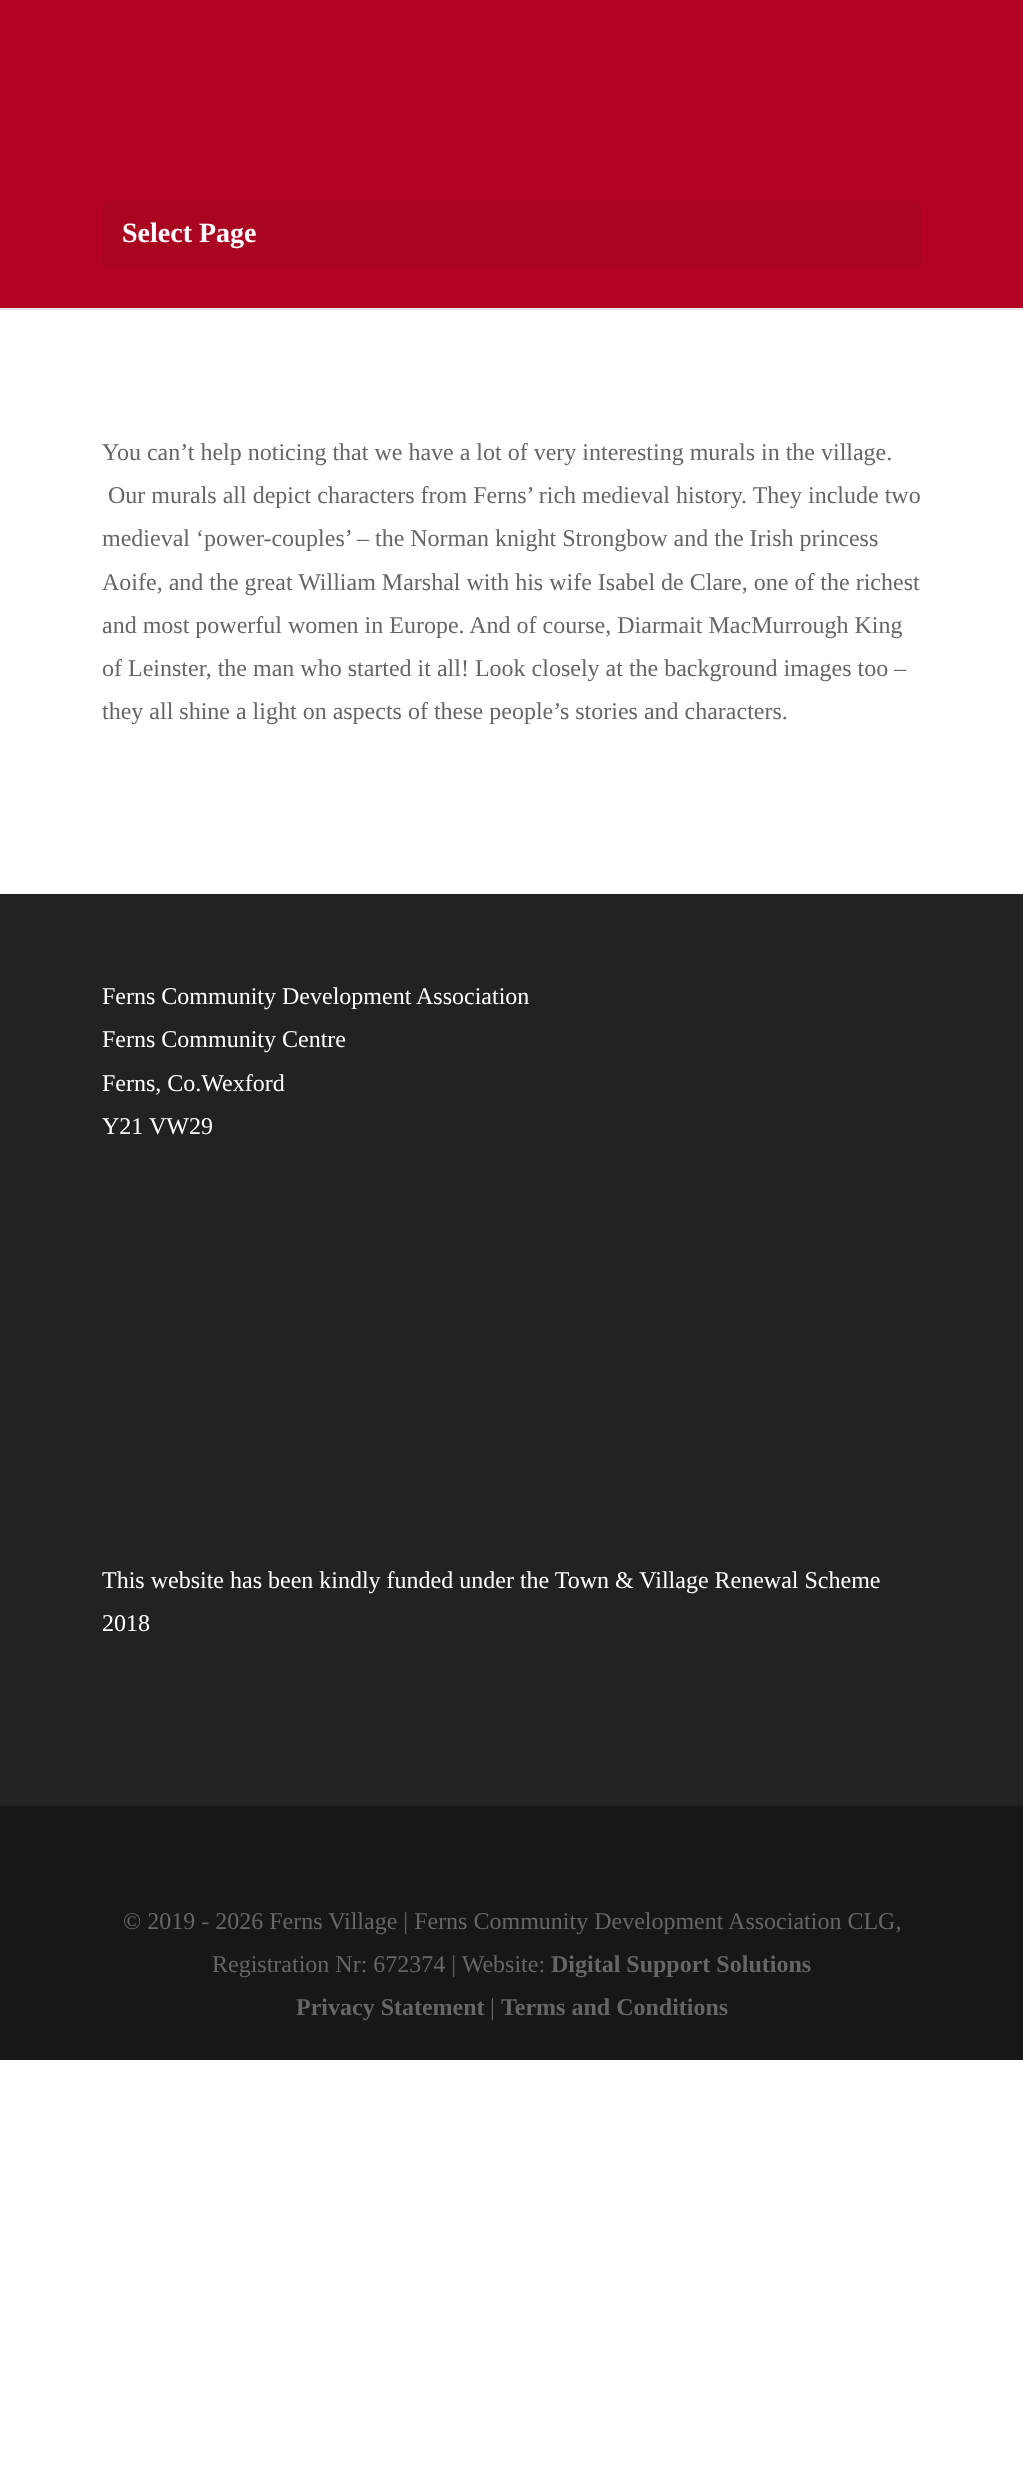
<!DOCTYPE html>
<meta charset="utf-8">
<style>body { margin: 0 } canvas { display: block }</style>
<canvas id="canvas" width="1023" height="2477"></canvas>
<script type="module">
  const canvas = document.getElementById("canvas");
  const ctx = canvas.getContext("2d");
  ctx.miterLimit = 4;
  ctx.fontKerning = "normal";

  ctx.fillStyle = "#ffffff";
  ctx.fillRect(0, 0, 1023, 2477);
  ctx.fillStyle = "#e6e6e6";
  ctx.fillRect(0, 308, 1023, 2);
  ctx.fillStyle = "#b20422";
  ctx.fillRect(0, 0, 1023, 308);
  ctx.fillStyle = "#a90420";
  ctx.beginPath();
  ctx.roundRect(102, 200, 820, 68, 10);
  ctx.fill();
  ctx.font = "bold 28px Liberation Serif";
  ctx.fillStyle = "#ffffff";
  ctx.fillText("Select Page", 122, 242);
  ctx.font = "24px Liberation Serif";
  ctx.fillStyle = "#666666";
  ctx.fillText("You can’t help noticing that we have a lot of very interesting murals in the village.", 102, 460);
  ctx.fillText("Our murals all depict characters from Ferns’ rich medieval history. They include two", 108, 503);
  ctx.fillText("medieval ‘power-couples’ – the Norman knight Strongbow and the Irish princess", 102, 546);
  ctx.fillText("Aoife, and the great William Marshal with his wife Isabel de Clare, one of the richest", 102, 590);
  ctx.fillText("and most powerful women in Europe. And of course, Diarmait MacMurrough King", 102, 633);
  ctx.fillText("of Leinster, the man who started it all! Look closely at the background images too –", 102, 676);
  ctx.fillText("they all shine a light on aspects of these people’s stories and characters.", 102, 719);
  ctx.fillStyle = "#222222";
  ctx.fillRect(0, 894, 1023, 912);
  ctx.fillStyle = "#ffffff";
  ctx.fillText("Ferns Community Development Association", 102, 1004);
  ctx.fillText("Ferns Community Centre", 102, 1047);
  ctx.fillText("Ferns, Co.Wexford", 102, 1091);
  ctx.fillText("Y21 VW29", 102, 1134);
  ctx.fillText("This website has been kindly funded under the Town & Village Renewal Scheme", 102, 1588);
  ctx.fillText("2018", 102, 1631);
  ctx.fillStyle = "#171717";
  ctx.fillRect(0, 1806, 1023, 254);
  ctx.fillStyle = "#666666";
  ctx.fillText("© 2019 - 2026 Ferns Village | Ferns Community Development Association CLG,", 123, 1929);
  ctx.fillText("Registration Nr: 672374 | Website:", 212, 1972);
  ctx.font = "bold 24px Liberation Serif";
  ctx.fillText("Digital Support Solutions", 551, 1972);
  ctx.fillText("Privacy Statement", 296, 2015);
  ctx.font = "24px Liberation Serif";
  ctx.fillText("|", 490, 2015);
  ctx.font = "bold 24px Liberation Serif";
  ctx.fillText("Terms and Conditions", 501, 2015);
</script>
